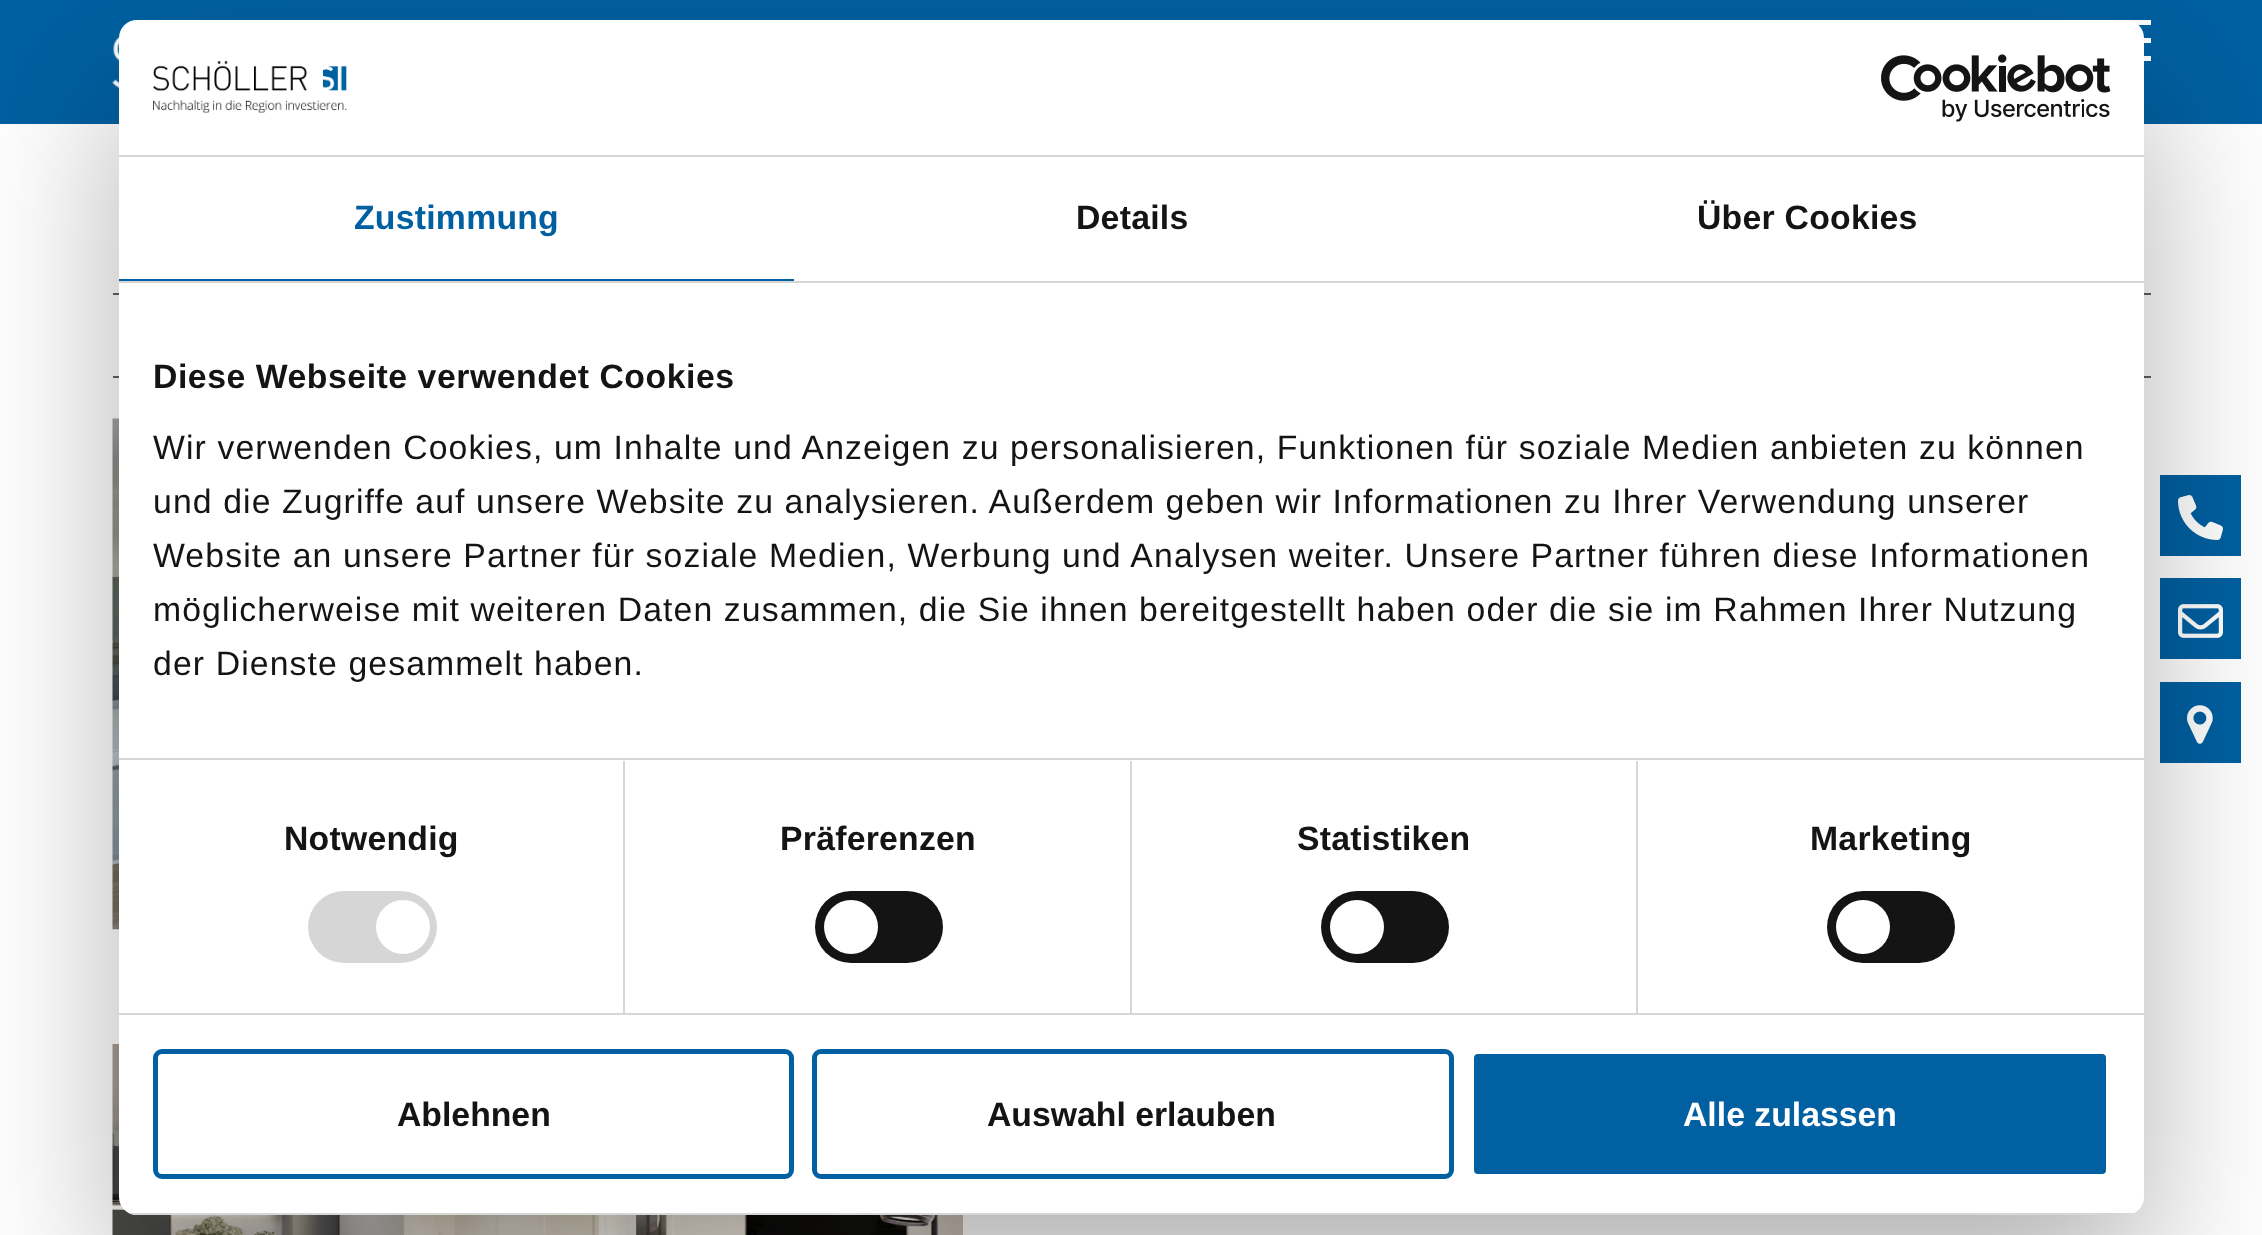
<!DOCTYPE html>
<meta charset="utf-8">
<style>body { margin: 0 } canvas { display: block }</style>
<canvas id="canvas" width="2262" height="1235"></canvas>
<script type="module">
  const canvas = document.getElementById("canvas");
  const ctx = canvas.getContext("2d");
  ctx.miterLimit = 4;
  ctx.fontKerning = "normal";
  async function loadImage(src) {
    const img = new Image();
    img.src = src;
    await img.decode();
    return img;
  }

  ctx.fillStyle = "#ffffff";
  ctx.fillRect(0, 0, 2262, 1235);
  ctx.fillStyle = "#0060a1";
  ctx.fillRect(0, 0, 2262, 124);
  ctx.drawImage(await loadImage("img1.png"), 112, 36, 8, 53);
  ctx.fillStyle = "#ffffff";
  ctx.fillRect(2126, 20, 25, 5);
  ctx.fillRect(2144, 38, 7, 5);
  ctx.fillRect(2144, 56, 7, 5);
  ctx.fillStyle = "#0060a1";
  ctx.fillRect(2160, 475, 81, 81);
  ctx.drawImage(await loadImage("img2.png"), 2178, 495, 45, 45);
  ctx.fillRect(2160, 578, 81, 81);
  ctx.drawImage(await loadImage("img3.png"), 2178, 604, 45, 34);
  ctx.fillRect(2160, 682, 81, 81);
  ctx.drawImage(await loadImage("img4.png"), 2187, 705, 26, 39);
  ctx.fillStyle = "#616161";
  ctx.fillRect(113, 293, 2038, 2);
  ctx.fillRect(113, 376, 2038, 2);
  ctx.drawImage(await loadImage("img5.png"), 112, 418, 7, 512);
  ctx.drawImage(await loadImage("img6.png"), 112, 1044, 851, 191);
  ctx.fillStyle = "rgba(0, 0, 0, 0.3)";
  ctx.filter = "blur(76.5px)";
  ctx.beginPath();
  ctx.roundRect(119, 92, 2025, 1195, 18);
  ctx.fill();
  ctx.filter = "none";
  ctx.fillStyle = "#ffffff";
  ctx.beginPath();
  ctx.roundRect(119, 20, 2025, 1195, 18);
  ctx.fill();
  ctx.fillStyle = "#d6d6d6";
  ctx.fillRect(119, 155, 2025, 2);
  ctx.drawImage(await loadImage("img7.png"), 153, 61, 194, 52);
  ctx.drawImage(await loadImage("img8.png"), 1881, 54, 230, 68);
  ctx.fillRect(119, 281, 2025, 2);
  ctx.fillStyle = "#0060a1";
  ctx.fillRect(119, 279, 675, 2);
  ctx.letterSpacing = "0.25px";
  ctx.font = "bold 33.75px Liberation Sans";
  ctx.fillText("Zustimmung", 354, 229);
  ctx.fillStyle = "#141414";
  ctx.fillText("Details", 1076, 229);
  ctx.fillText("Über Cookies", 1697, 229);
  ctx.fillStyle = "#d6d6d6";
  ctx.fillRect(119, 758, 2025, 2);
  ctx.letterSpacing = "0.55px";
  ctx.fillStyle = "#141414";
  ctx.fillText("Diese Webseite verwendet Cookies", 153, 388);
  ctx.letterSpacing = "1.12px";
  ctx.font = "33.75px Liberation Sans";
  ctx.fillText("Wir verwenden Cookies, um Inhalte und Anzeigen zu personalisieren, Funktionen für soziale Medien anbieten zu können", 153, 459);
  ctx.fillText("und die Zugriffe auf unsere Website zu analysieren. Außerdem geben wir Informationen zu Ihrer Verwendung unserer", 153, 513);
  ctx.fillText("Website an unsere Partner für soziale Medien, Werbung und Analysen weiter. Unsere Partner führen diese Informationen", 153, 567);
  ctx.fillText("möglicherweise mit weiteren Daten zusammen, die Sie ihnen bereitgestellt haben oder die sie im Rahmen Ihrer Nutzung", 153, 621);
  ctx.fillText("der Dienste gesammelt haben.", 153, 675);
  ctx.fillStyle = "#d6d6d6";
  ctx.fillRect(119, 1013, 2025, 2);
  ctx.fillRect(623, 761, 2, 252);
  ctx.letterSpacing = "0.25px";
  ctx.font = "bold 33.75px Liberation Sans";
  ctx.fillStyle = "#141414";
  ctx.fillText("Notwendig", 284, 850);
  ctx.fillStyle = "#d6d6d6";
  ctx.beginPath();
  ctx.roundRect(308, 891, 129, 72, 36);
  ctx.fill();
  ctx.fillStyle = "#ffffff";
  ctx.beginPath();
  ctx.arc(403, 927, 27, 0, Math.PI * 2);
  ctx.fill();
  ctx.fillStyle = "#d6d6d6";
  ctx.fillRect(1130, 761, 2, 252);
  ctx.fillStyle = "#141414";
  ctx.fillText("Präferenzen", 780, 850);
  ctx.beginPath();
  ctx.roundRect(815, 891, 128, 72, 36);
  ctx.fill();
  ctx.fillStyle = "#ffffff";
  ctx.beginPath();
  ctx.arc(851, 927, 27, 0, Math.PI * 2);
  ctx.fill();
  ctx.fillStyle = "#d6d6d6";
  ctx.fillRect(1636, 761, 2, 252);
  ctx.fillStyle = "#141414";
  ctx.fillText("Statistiken", 1297, 850);
  ctx.beginPath();
  ctx.roundRect(1321, 891, 128, 72, 36);
  ctx.fill();
  ctx.fillStyle = "#ffffff";
  ctx.beginPath();
  ctx.arc(1357, 927, 27, 0, Math.PI * 2);
  ctx.fill();
  ctx.fillStyle = "#141414";
  ctx.fillText("Marketing", 1810, 850);
  ctx.beginPath();
  ctx.roundRect(1827, 891, 128, 72, 36);
  ctx.fill();
  ctx.fillStyle = "#ffffff";
  ctx.beginPath();
  ctx.arc(1863, 927, 27, 0, Math.PI * 2);
  ctx.fill();
  ctx.save();
  ctx.beginPath();
  ctx.roundRect(119, 20, 2025, 1195, 18);
  ctx.clip();
  ctx.fillStyle = "#d6d6d6";
  ctx.fillRect(129, 1213, 2005, 2);
  ctx.restore();
  ctx.beginPath();
  ctx.roundRect(155.5, 1051.5, 636, 125, 6.5);
  ctx.strokeStyle = "#0060a1";
  ctx.lineWidth = 5;
  ctx.stroke();
  ctx.letterSpacing = "0px";
  ctx.fillStyle = "#141414";
  ctx.fillText("Ablehnen", 397, 1126);
  ctx.beginPath();
  ctx.roundRect(814.5, 1051.5, 637, 125, 6.5);
  ctx.stroke();
  ctx.fillText("Auswahl erlauben", 987, 1126);
  ctx.fillStyle = "#0060a1";
  ctx.beginPath();
  ctx.roundRect(1471.5, 1051.5, 637, 125, 6.5);
  ctx.fill();
  ctx.strokeStyle = "#ffffff";
  ctx.stroke();
  ctx.fillStyle = "#ffffff";
  ctx.fillText("Alle zulassen", 1683, 1126);
</script>
